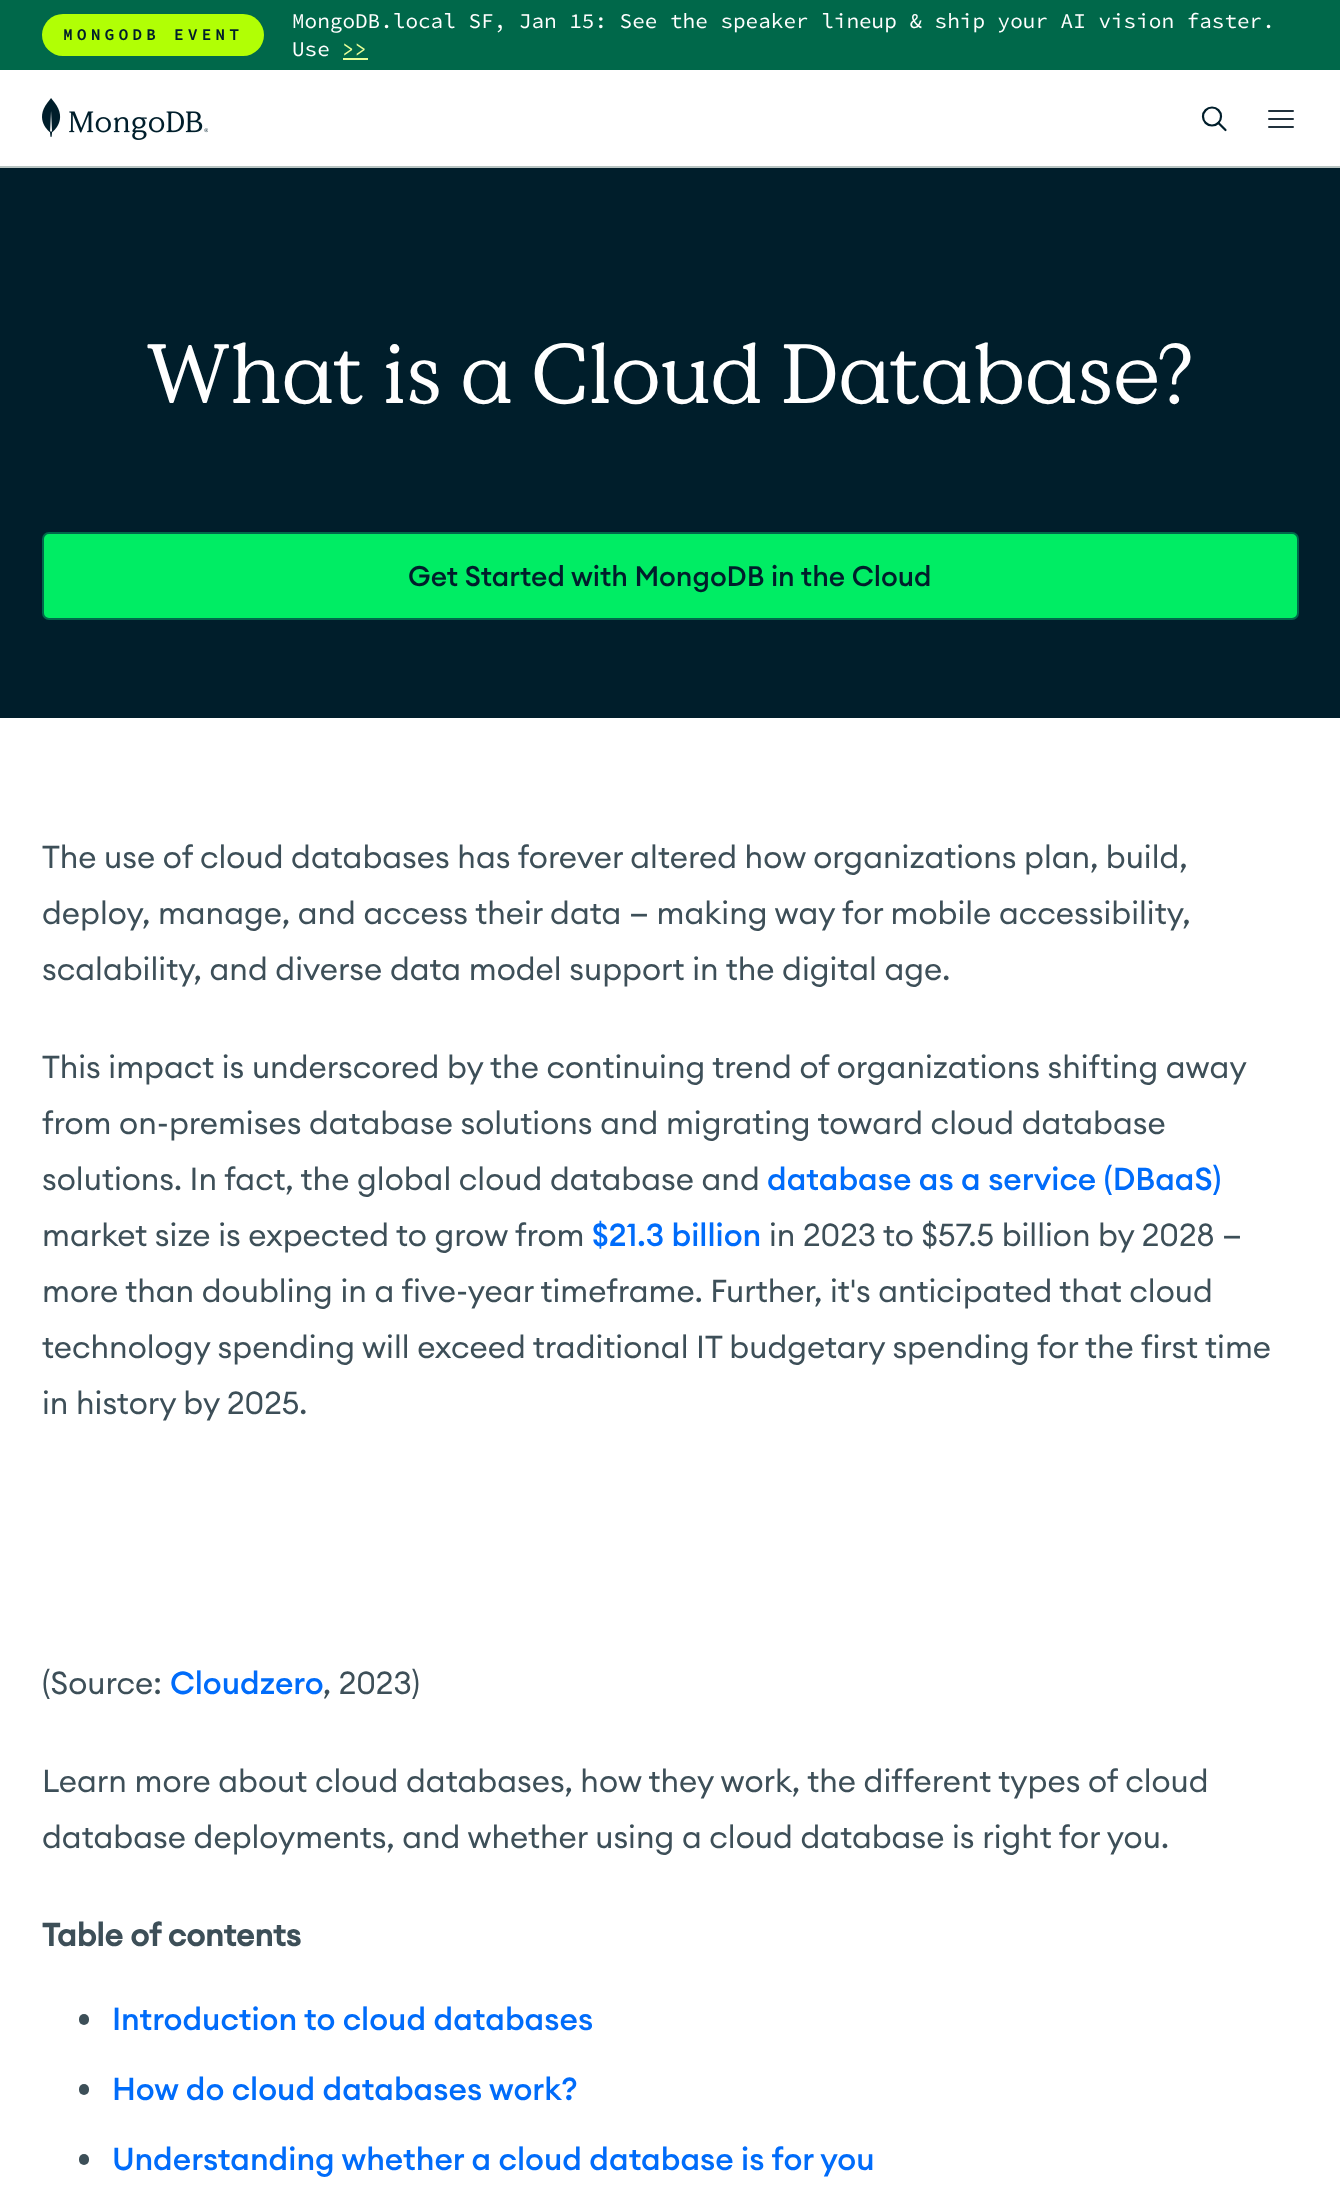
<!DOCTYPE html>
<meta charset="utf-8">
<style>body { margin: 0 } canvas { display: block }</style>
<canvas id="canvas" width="1340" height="2191"></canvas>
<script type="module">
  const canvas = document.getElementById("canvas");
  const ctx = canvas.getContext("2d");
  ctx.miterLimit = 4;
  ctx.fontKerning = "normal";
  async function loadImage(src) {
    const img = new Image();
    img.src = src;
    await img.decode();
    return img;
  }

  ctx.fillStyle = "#ffffff";
  ctx.fillRect(0, 0, 1340, 2191);
  ctx.fillStyle = "#00684a";
  ctx.fillRect(0, 0, 1340, 70);
  ctx.fillStyle = "#b1ff05";
  ctx.beginPath();
  ctx.roundRect(42, 14, 222, 42, 21);
  ctx.fill();
  ctx.letterSpacing = "4.4px";
  ctx.font = "bold 15.75px Source Code Pro";
  ctx.fillStyle = "#001e2b";
  ctx.fillText("MONGODB EVENT", 63, 40);
  ctx.letterSpacing = "0px";
  ctx.font = "21px Source Code Pro";
  ctx.fillStyle = "#ffffff";
  ctx.fillText("MongoDB.local SF, Jan 15: See the speaker lineup & ship your AI vision faster.", 292, 28);
  ctx.fillText("Use", 292, 56);
  ctx.fillStyle = "#e9ff99";
  ctx.fillText(">>", 342, 56);
  ctx.fillRect(343, 58, 25, 2);
  ctx.fillStyle = "#b8c4c2";
  ctx.fillRect(0, 166, 1340, 2);
  ctx.drawImage(await loadImage("img1.png"), 42, 98, 166, 42);
  ctx.beginPath();
  ctx.arc(1212, 116.5, 9, 0, Math.PI * 2);
  ctx.strokeStyle = "#001e2b";
  ctx.lineWidth = 2.2;
  ctx.stroke();
  ctx.beginPath();
  ctx.moveTo(1225.5, 130);
  ctx.lineTo(1218.5, 123);
  ctx.lineCap = "round";
  ctx.stroke();
  ctx.fillStyle = "#21313c";
  ctx.beginPath();
  ctx.roundRect(1268, 110, 26, 2, 1);
  ctx.fill();
  ctx.beginPath();
  ctx.roundRect(1268, 118, 26, 2, 1);
  ctx.fill();
  ctx.beginPath();
  ctx.roundRect(1268, 126, 26, 2, 1);
  ctx.fill();
  ctx.fillStyle = "#001e2b";
  ctx.fillRect(0, 168, 1340, 550);
  ctx.font = "84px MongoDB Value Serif";
  ctx.fillStyle = "#ffffff";
  ctx.fillText("What is a Cloud Database?", 146, 403);
  ctx.fillStyle = "#00ed64";
  ctx.beginPath();
  ctx.roundRect(43, 533, 1255, 86, 6);
  ctx.fill();
  ctx.strokeStyle = "#00684a";
  ctx.lineWidth = 2;
  ctx.stroke();
  ctx.font = "500 28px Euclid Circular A";
  ctx.fillStyle = "#001e2b";
  ctx.fillText("Get Started with MongoDB in the Cloud", 408, 586);
  ctx.font = "31.5px Euclid Circular A";
  ctx.fillStyle = "#3d4f58";
  ctx.fillText("The use of cloud databases has forever altered how organizations plan, build,", 42, 868);
  ctx.fillText("deploy, manage, and access their data — making way for mobile accessibility,", 42, 924);
  ctx.fillText("scalability, and diverse data model support in the digital age.", 42, 980);
  ctx.fillText("This impact is underscored by the continuing trend of organizations shifting away", 42, 1078);
  ctx.fillText("from on-premises database solutions and migrating toward cloud database", 42, 1134);
  ctx.fillText("solutions. In fact, the global cloud database and", 42, 1190);
  ctx.font = "500 31.5px Euclid Circular A";
  ctx.fillStyle = "#006cfa";
  ctx.fillText("database as a service (DBaaS)", 767, 1190);
  ctx.font = "31.5px Euclid Circular A";
  ctx.fillStyle = "#3d4f58";
  ctx.fillText("market size is expected to grow from", 42, 1246);
  ctx.font = "500 31.5px Euclid Circular A";
  ctx.fillStyle = "#006cfa";
  ctx.fillText("$21.3 billion", 592, 1246);
  ctx.font = "31.5px Euclid Circular A";
  ctx.fillStyle = "#3d4f58";
  ctx.fillText("in 2023 to $57.5 billion by 2028 —", 769, 1246);
  ctx.fillText("more than doubling in a five-year timeframe. Further, it's anticipated that cloud", 42, 1302);
  ctx.fillText("technology spending will exceed traditional IT budgetary spending for the first time", 42, 1358);
  ctx.fillText("in history by 2025.", 42, 1414);
  ctx.fillText("(Source:", 42, 1694);
  ctx.font = "500 31.5px Euclid Circular A";
  ctx.fillStyle = "#006cfa";
  ctx.fillText("Cloudzero", 170, 1694);
  ctx.font = "31.5px Euclid Circular A";
  ctx.fillStyle = "#3d4f58";
  ctx.fillText(", 2023)", 323, 1694);
  ctx.fillText("Learn more about cloud databases, how they work, the different types of cloud", 42, 1792);
  ctx.fillText("database deployments, and whether using a cloud database is right for you.", 42, 1848);
  ctx.font = "bold 31.5px Euclid Circular A";
  ctx.fillText("Table of contents", 42, 1946);
  ctx.beginPath();
  ctx.roundRect(79, 2014, 10, 11, 5);
  ctx.fill();
  ctx.font = "500 31.5px Euclid Circular A";
  ctx.fillStyle = "#006cfa";
  ctx.fillText("Introduction to cloud databases", 112, 2030);
  ctx.fillStyle = "#3d4f58";
  ctx.beginPath();
  ctx.roundRect(79, 2084, 10, 11, 5);
  ctx.fill();
  ctx.fillStyle = "#006cfa";
  ctx.fillText("How do cloud databases work?", 112, 2100);
  ctx.fillStyle = "#3d4f58";
  ctx.beginPath();
  ctx.roundRect(79, 2154, 10, 11, 5);
  ctx.fill();
  ctx.fillStyle = "#006cfa";
  ctx.fillText("Understanding whether a cloud database is for you", 112, 2170);
</script>
